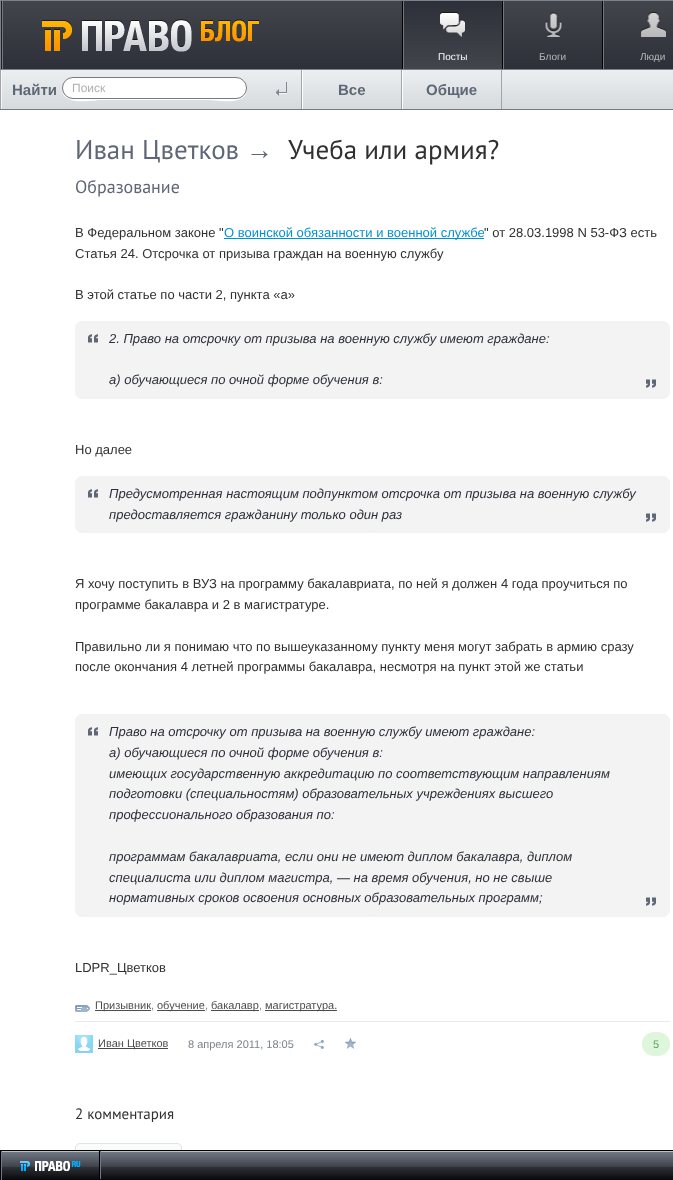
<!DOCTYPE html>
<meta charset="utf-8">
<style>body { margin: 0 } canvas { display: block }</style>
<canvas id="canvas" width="673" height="1180"></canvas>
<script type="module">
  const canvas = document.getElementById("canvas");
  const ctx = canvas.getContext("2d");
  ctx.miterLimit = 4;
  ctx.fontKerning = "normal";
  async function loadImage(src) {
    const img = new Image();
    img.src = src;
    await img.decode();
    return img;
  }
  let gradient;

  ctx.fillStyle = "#ffffff";
  ctx.fillRect(0, 0, 673, 1180);
  gradient = ctx.createLinearGradient(1, 1, 1, 69);
  gradient.addColorStop(0, "#42454c");
  gradient.addColorStop(1, "#2d3038");
  ctx.fillStyle = gradient;
  ctx.fillRect(3, 1, 670, 68);
  ctx.strokeStyle = "#7a828e";
  ctx.strokeRect(0.5, 0.5, 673, 69);
  ctx.fillStyle = "#1e2023";
  ctx.fillRect(1, 1, 1, 68);
  ctx.fillStyle = "#747780";
  ctx.fillRect(2, 1, 1, 68);
  ctx.drawImage(await loadImage("img1.png"), 42, 19, 217, 33);
  ctx.fillStyle = "#000000";
  ctx.fillRect(402, 1, 1, 68);
  ctx.fillRect(502, 1, 1, 68);
  gradient = ctx.createLinearGradient(404, 1, 404, 69);
  gradient.addColorStop(0, "#2d3038");
  gradient.addColorStop(1, "#42454c");
  ctx.fillStyle = gradient;
  ctx.fillRect(404, 1, 98, 68);
  ctx.fillStyle = "#747780";
  ctx.fillRect(403, 1, 1, 68);
  ctx.drawImage(await loadImage("img2.png"), 440, 12, 25, 25);
  ctx.font = "10px Liberation Sans";
  ctx.fillStyle = "#ffffff";
  ctx.fillText("Посты", 438, 60);
  ctx.fillStyle = "#000000";
  ctx.fillRect(602, 1, 1, 68);
  ctx.fillStyle = "#747780";
  ctx.fillRect(503, 1, 1, 68);
  ctx.drawImage(await loadImage("img3.png"), 545, 12, 17, 25);
  ctx.fillStyle = "#b8b8b8";
  ctx.fillText("Блоги", 539, 60);
  ctx.fillStyle = "#747780";
  ctx.fillRect(603, 1, 1, 68);
  ctx.drawImage(await loadImage("img4.png"), 641, 12, 25, 25);
  ctx.fillStyle = "#b8b8b8";
  ctx.fillText("Люди", 640, 60);
  gradient = ctx.createLinearGradient(0, 70, 0, 109);
  gradient.addColorStop(0, "#eceff1");
  gradient.addColorStop(1, "#d6dadd");
  ctx.fillStyle = gradient;
  ctx.fillRect(2, 70, 671, 39);
  ctx.fillStyle = "#75787e";
  ctx.fillRect(0, 109, 673, 1);
  ctx.fillStyle = "#9fa4ad";
  ctx.fillRect(0, 70, 1, 39);
  ctx.fillRect(301, 70, 1, 39);
  ctx.fillStyle = "#f6f7f7";
  ctx.fillRect(1, 70, 1, 39);
  ctx.font = "bold 15px Liberation Sans";
  ctx.fillStyle = "#5f6776";
  ctx.fillText("Найти", 12, 95);
  ctx.fillStyle = "#ffffff";
  ctx.beginPath();
  ctx.moveTo(62, 88);
  ctx.bezierCurveTo(61, 107, 94, 100, 100, 100);
  ctx.lineTo(209, 100);
  ctx.bezierCurveTo(215, 100, 248, 107, 247, 88);
  ctx.bezierCurveTo(247, 94, 242, 99, 236, 99);
  ctx.lineTo(73, 99);
  ctx.bezierCurveTo(67, 99, 62, 94, 62, 88);
  ctx.closePath();
  ctx.fill();
  ctx.beginPath();
  ctx.roundRect(62.5, 77.5, 184, 21, 10.5);
  ctx.fill();
  ctx.strokeStyle = "#787a81";
  ctx.stroke();
  ctx.font = "12px Liberation Sans";
  ctx.fillStyle = "#afafaf";
  ctx.fillText("Поиск", 72, 92);
  ctx.drawImage(await loadImage("img5.png"), 276, 82, 11, 14);
  ctx.fillStyle = "#9fa4ad";
  ctx.fillRect(401, 70, 1, 39);
  ctx.fillStyle = "#ffffff";
  ctx.fillRect(302, 70, 1, 39);
  ctx.font = "bold 15px Liberation Sans";
  ctx.fillStyle = "#5f6776";
  ctx.fillText("Все", 338, 95);
  ctx.fillStyle = "#9fa4ad";
  ctx.fillRect(501, 70, 1, 39);
  ctx.fillStyle = "#ffffff";
  ctx.fillRect(402, 70, 1, 39);
  ctx.fillStyle = "#5f6776";
  ctx.fillText("Общие", 426, 95);
  ctx.font = "27px PT Sans";
  ctx.fillText("Иван Цветков", 75, 159);
  ctx.font = "27px Liberation Sans";
  ctx.fillText("→", 246, 159);
  ctx.font = "27px PT Sans";
  ctx.fillStyle = "#303030";
  ctx.fillText("Учеба или армия?", 288, 159);
  ctx.font = "18px PT Sans";
  ctx.fillStyle = "#5f6776";
  ctx.fillText("Образование", 75, 193);
  ctx.font = "13px Liberation Sans";
  ctx.fillStyle = "#303030";
  ctx.fillText("В Федеральном законе \"", 75, 237);
  ctx.fillStyle = "#0091d1";
  ctx.fillRect(224, 238, 260, 1);
  ctx.fillText("О воинской обязанности и военной службе", 224, 237);
  ctx.fillStyle = "#303030";
  ctx.fillText("\" от 28.03.1998 N 53-ФЗ есть", 484, 237);
  ctx.fillText("Статья 24. Отсрочка от призыва граждан на военную службу", 75, 258);
  ctx.fillText("В этой статье по части 2, пункта «а»", 75, 299);
  ctx.fillStyle = "#f3f3f4";
  ctx.beginPath();
  ctx.roundRect(75.5, 321.5, 594, 77, 6.5);
  ctx.fill();
  ctx.strokeStyle = "#f3f3f4";
  ctx.stroke();
  ctx.drawImage(await loadImage("img6.png"), 88, 334, 10, 9);
  ctx.font = "italic 13px Liberation Sans";
  ctx.fillStyle = "#2d3038";
  ctx.fillText("2. Право на отсрочку от призыва на военную службу имеют граждане:", 109, 343);
  ctx.fillText("а) обучающиеся по очной форме обучения в:", 109, 384);
  ctx.drawImage(await loadImage("img7.png"), 646, 379, 10, 9);
  ctx.font = "13px Liberation Sans";
  ctx.fillStyle = "#303030";
  ctx.fillText("Но далее", 75, 454);
  ctx.fillStyle = "#f3f3f4";
  ctx.beginPath();
  ctx.roundRect(75.5, 476.5, 594, 56, 6.5);
  ctx.fill();
  ctx.stroke();
  ctx.drawImage(await loadImage("img6.png"), 88, 489, 10, 9);
  ctx.font = "italic 13px Liberation Sans";
  ctx.fillStyle = "#2d3038";
  ctx.fillText("Предусмотренная настоящим подпунктом отсрочка от призыва на военную службу", 109, 498);
  ctx.fillText("предоставляется гражданину только один раз", 109, 519);
  ctx.drawImage(await loadImage("img7.png"), 646, 513, 10, 9);
  ctx.font = "13px Liberation Sans";
  ctx.fillStyle = "#303030";
  ctx.fillText("Я хочу поступить в ВУЗ на программу бакалавриата, по ней я должен 4 года проучиться по", 75, 588);
  ctx.fillText("программе бакалавра и 2 в магистратуре.", 75, 609);
  ctx.fillText("Правильно ли я понимаю что по вышеуказанному пункту меня могут забрать в армию сразу", 75, 651);
  ctx.fillText("после окончания 4 летней программы бакалавра, несмотря на пункт этой же статьи", 75, 671);
  ctx.fillStyle = "#f3f3f4";
  ctx.beginPath();
  ctx.roundRect(75.5, 714.5, 594, 202, 6.5);
  ctx.fill();
  ctx.stroke();
  ctx.drawImage(await loadImage("img6.png"), 88, 727, 10, 9);
  ctx.font = "italic 13px Liberation Sans";
  ctx.fillStyle = "#2d3038";
  ctx.fillText("Право на отсрочку от призыва на военную службу имеют граждане:", 109, 736);
  ctx.fillText("а) обучающиеся по очной форме обучения в:", 109, 757);
  ctx.fillText("имеющих государственную аккредитацию по соответствующим направлениям", 109, 778);
  ctx.fillText("подготовки (специальностям) образовательных учреждениях высшего", 109, 798);
  ctx.fillText("профессионального образования по:", 109, 819);
  ctx.fillText("программам бакалавриата, если они не имеют диплом бакалавра, диплом", 109, 861);
  ctx.fillText("специалиста или диплом магистра, — на время обучения, но не свыше", 109, 882);
  ctx.fillText("нормативных сроков освоения основных образовательных программ;", 109, 902);
  ctx.drawImage(await loadImage("img7.png"), 646, 897, 10, 9);
  ctx.font = "13px Liberation Sans";
  ctx.fillStyle = "#303030";
  ctx.fillText("LDPR_Цветков", 75, 972);
  ctx.drawImage(await loadImage("img8.png"), 75, 1005, 15, 7);
  ctx.fillStyle = "#4c4c4c";
  ctx.fillRect(95, 1010, 56, 1);
  ctx.font = "11px Liberation Sans";
  ctx.fillText("Призывник", 95, 1009);
  ctx.fillStyle = "#888888";
  ctx.fillText(",", 151, 1009);
  ctx.fillStyle = "#4c4c4c";
  ctx.fillRect(157, 1010, 48, 1);
  ctx.fillText("обучение", 157, 1009);
  ctx.fillStyle = "#888888";
  ctx.fillText(",", 205, 1009);
  ctx.fillStyle = "#4c4c4c";
  ctx.fillRect(211, 1010, 48, 1);
  ctx.fillText("бакалавр", 211, 1009);
  ctx.fillStyle = "#888888";
  ctx.fillText(",", 259, 1009);
  ctx.fillStyle = "#4c4c4c";
  ctx.fillRect(265, 1010, 72, 1);
  ctx.fillText("магистратура.", 265, 1009);
  ctx.fillStyle = "#e7ebed";
  ctx.fillRect(75, 1021, 595, 1);
  ctx.drawImage(await loadImage("img9.png"), 75, 1035, 18, 18);
  ctx.fillStyle = "#4a4a4a";
  ctx.fillRect(98, 1048, 70, 1);
  ctx.fillStyle = "#4c4c4c";
  ctx.fillText("Иван Цветков", 98, 1047);
  ctx.fillStyle = "#7b848d";
  ctx.fillText("8 апреля 2011, 18:05", 188, 1048);
  ctx.drawImage(await loadImage("img10.png"), 314, 1040, 10, 9);
  ctx.drawImage(await loadImage("img11.png"), 345, 1038, 11, 11);
  ctx.fillStyle = "#def7dc";
  ctx.beginPath();
  ctx.roundRect(642, 1032, 28, 24, 12);
  ctx.fill();
  ctx.fillStyle = "#5fa459";
  ctx.fillText("5", 653, 1048);
  ctx.font = "15px PT Sans";
  ctx.fillStyle = "#303030";
  ctx.fillText("2 комментария", 75, 1119);
  ctx.save();
  ctx.beginPath();
  ctx.roundRect(75, 1143, 107, 31, 5);
  ctx.clip();
  gradient = ctx.createLinearGradient(129, 1144, 129, 1173);
  gradient.addColorStop(0, "#fbfcfc");
  gradient.addColorStop(1, "#f0f2f5");
  ctx.fillStyle = gradient;
  ctx.fillRect(75, 1144, 107, 6);
  ctx.restore();
  ctx.beginPath();
  ctx.roundRect(75.5, 1143.5, 106, 30, 4.5);
  ctx.strokeStyle = "#dfe3e8";
  ctx.stroke();
  ctx.drawImage(await loadImage("img12.png"), 0, 1151, 673, 29);
  ctx.fillStyle = "#000000";
  ctx.fillRect(0, 1150, 673, 1);
  ctx.fillStyle = "#00000c";
  ctx.fillRect(0, 1151, 1, 28);
  ctx.fillRect(99, 1151, 1, 29);
  ctx.fillStyle = "#747780";
  ctx.fillRect(1, 1151, 1, 29);
  ctx.drawImage(await loadImage("img13.png"), 20, 1161, 61, 10);
  ctx.fillRect(100, 1151, 1, 28);
</script>
